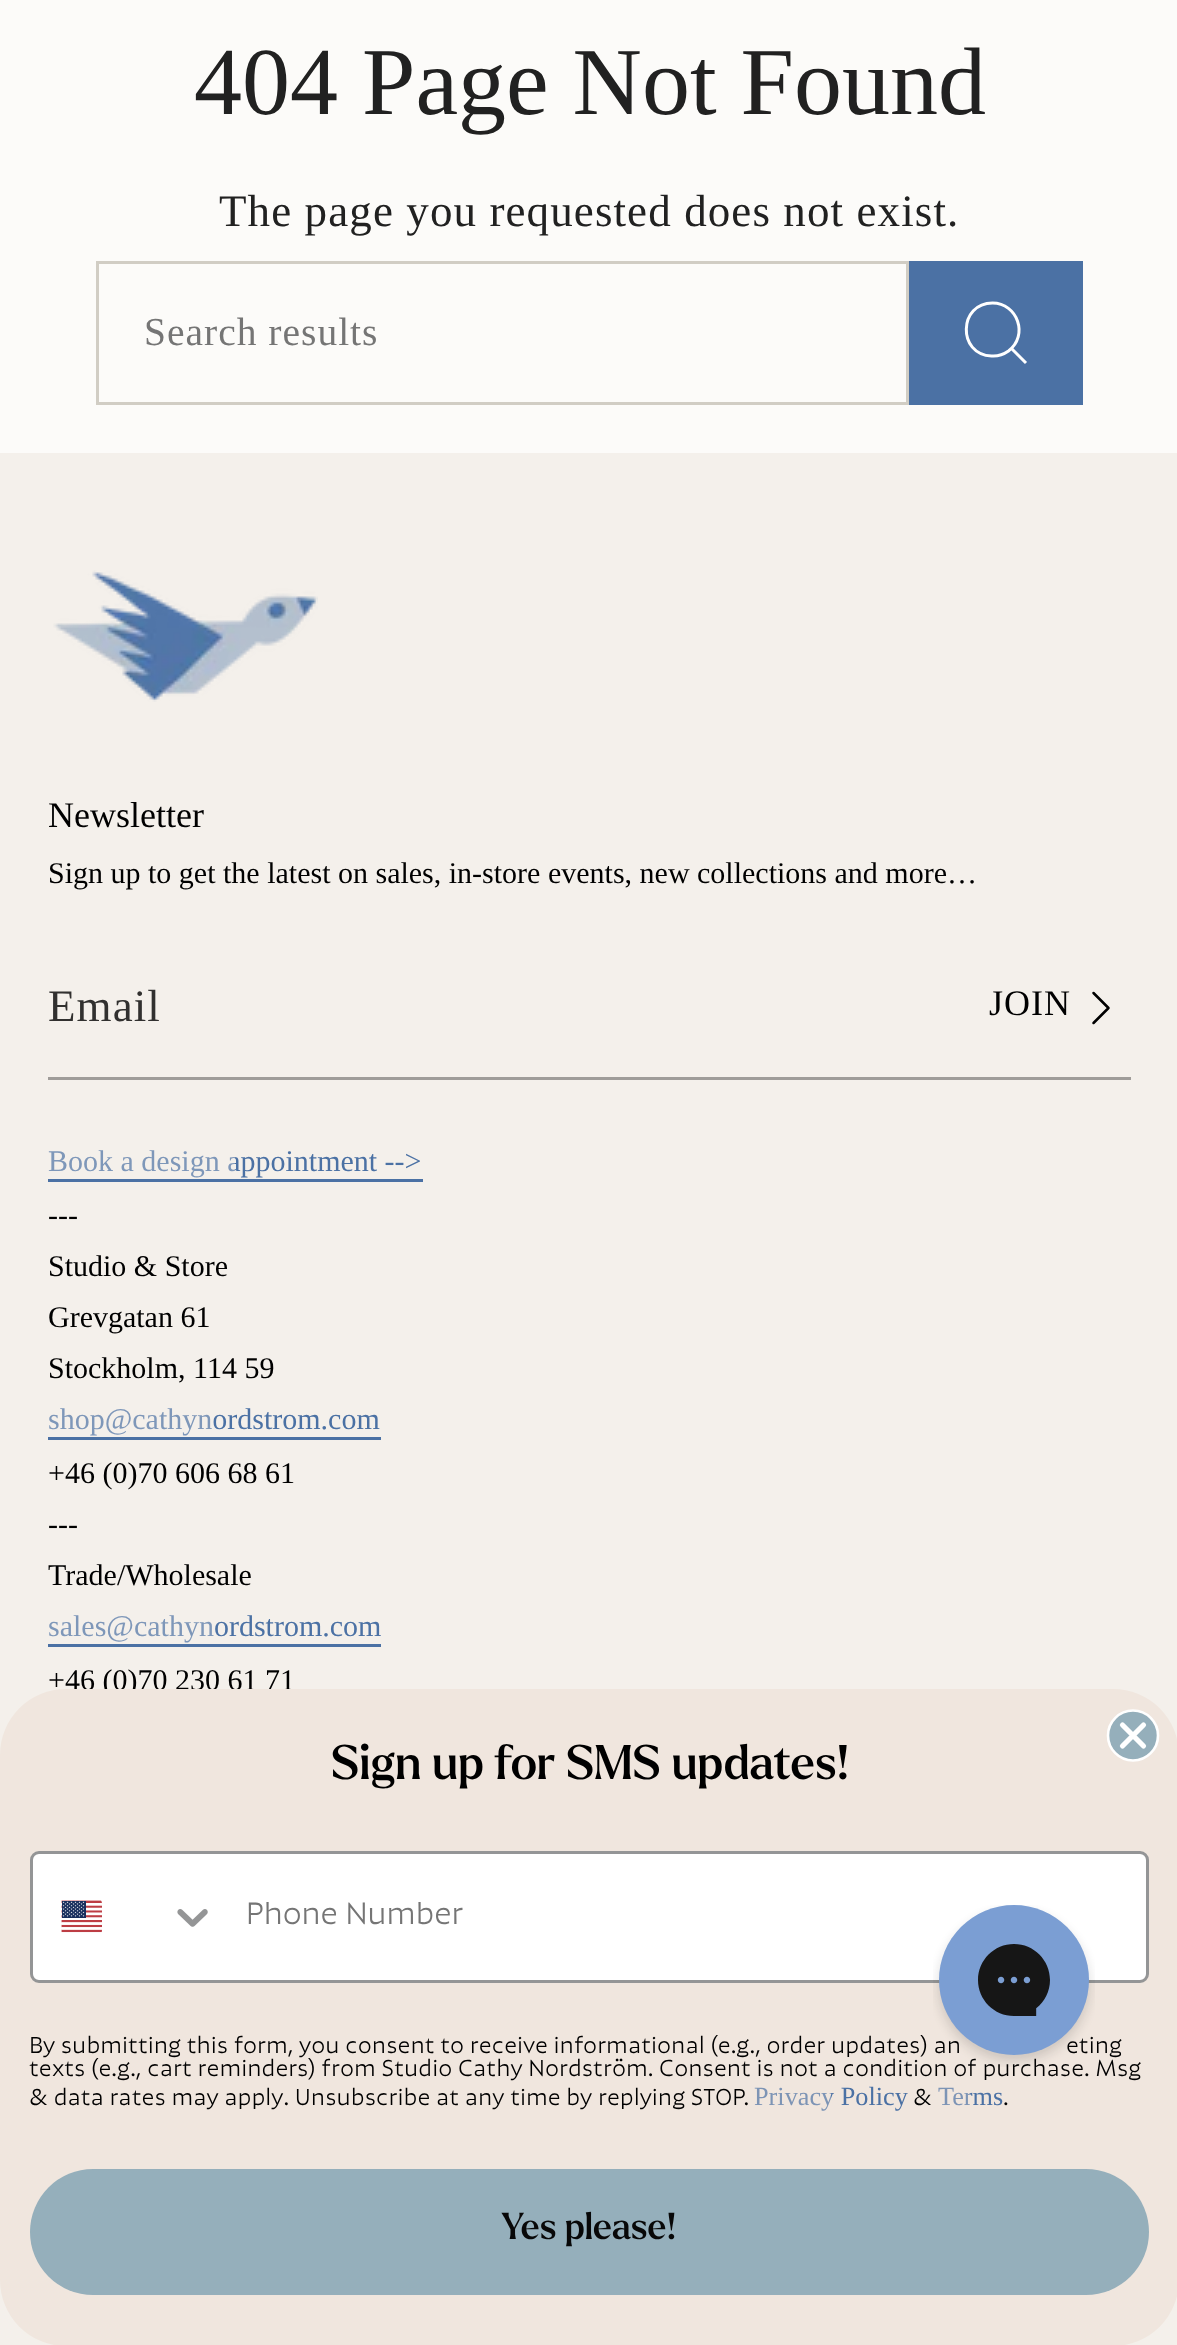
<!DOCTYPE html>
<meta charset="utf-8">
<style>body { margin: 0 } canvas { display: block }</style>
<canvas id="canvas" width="1177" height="2345"></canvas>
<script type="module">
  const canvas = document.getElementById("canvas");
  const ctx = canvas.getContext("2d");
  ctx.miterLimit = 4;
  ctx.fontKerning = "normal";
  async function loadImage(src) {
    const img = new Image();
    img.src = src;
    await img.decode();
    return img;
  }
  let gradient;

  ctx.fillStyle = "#f4f0eb";
  ctx.fillRect(0, 0, 1177, 2345);
  ctx.fillStyle = "#fcfbf9";
  ctx.fillRect(0, 0, 1177, 453);
  ctx.font = "96px Liberation Serif";
  ctx.fillStyle = "#212121";
  ctx.fillText("404 Page Not Found", 194, 114);
  ctx.letterSpacing = "1.1px";
  ctx.font = "45px Liberation Serif";
  ctx.fillText("The page you requested does not exist.", 219, 226);
  ctx.strokeStyle = "#d1cdc4";
  ctx.lineWidth = 3;
  ctx.strokeRect(97.5, 262.5, 810, 141);
  ctx.letterSpacing = "1px";
  ctx.font = "39.5px Liberation Serif";
  ctx.fillStyle = "#757575";
  ctx.fillText("Search results", 144, 345);
  ctx.fillStyle = "#4b71a4";
  ctx.fillRect(909, 261, 174, 144);
  ctx.beginPath();
  ctx.moveTo(992.5, 303);
  ctx.bezierCurveTo(1017.5, 303, 1029, 335.5, 1008.5, 351);
  ctx.bezierCurveTo(1003.5, 354.5, 997.5, 356.5, 991.5, 356);
  ctx.bezierCurveTo(957, 354.5, 958.5, 303, 992.5, 303);
  ctx.closePath();
  ctx.moveTo(1011.5, 348.5);
  ctx.lineTo(1026, 363);
  ctx.strokeStyle = "#ffffff";
  ctx.stroke();
  ctx.drawImage(await loadImage("img1.png"), 53, 570, 265, 132);
  ctx.letterSpacing = "0px";
  ctx.font = "36px Liberation Serif";
  ctx.fillStyle = "#000000";
  ctx.fillText("Newsletter", 48, 827);
  ctx.font = "30px Liberation Serif";
  ctx.fillText("Sign up to get the latest on sales, in-store events, new collections and more…", 48, 883);
  ctx.fillStyle = "#9f9c99";
  ctx.fillRect(48, 1077, 1083, 3);
  ctx.letterSpacing = "1.1px";
  ctx.font = "45px Liberation Serif";
  ctx.fillStyle = "#31302f";
  ctx.fillText("Email", 48, 1021);
  ctx.letterSpacing = "1px";
  ctx.font = "36px Liberation Serif";
  ctx.fillStyle = "#000000";
  ctx.fillText("JOIN", 989, 1015);
  ctx.beginPath();
  ctx.moveTo(1093.5, 993);
  ctx.lineTo(1108.5, 1008);
  ctx.lineTo(1093.5, 1023);
  ctx.strokeStyle = "#000000";
  ctx.lineWidth = 2.5;
  ctx.lineCap = "round";
  ctx.lineJoin = "round";
  ctx.stroke();
  ctx.letterSpacing = "0px";
  ctx.font = "30px Liberation Serif";
  gradient = ctx.createLinearGradient(48, 1163, 422, 1163);
  gradient.addColorStop(0, "#7e97b9");
  gradient.addColorStop(0.5, "#7e97b9");
  gradient.addColorStop(0.5, "#4b71a4");
  gradient.addColorStop(1, "#4b71a4");
  ctx.fillStyle = gradient;
  ctx.fillText("Book a design appointment -->", 48, 1171);
  ctx.fillStyle = "#4b71a4";
  ctx.fillRect(48, 1179, 375, 3);
  ctx.fillStyle = "#000000";
  ctx.fillText("---", 48, 1225);
  ctx.fillText("Studio & Store", 48, 1276);
  ctx.fillText("Grevgatan 61", 48, 1327);
  ctx.fillText("Stockholm, 114 59", 48, 1378);
  gradient = ctx.createLinearGradient(48, 1421, 380, 1421);
  gradient.addColorStop(0, "#7e97b9");
  gradient.addColorStop(0.5, "#7e97b9");
  gradient.addColorStop(0.5, "#4b71a4");
  gradient.addColorStop(1, "#4b71a4");
  ctx.fillStyle = gradient;
  ctx.fillText("shop@cathynordstrom.com", 48, 1429);
  ctx.fillStyle = "#4b71a4";
  ctx.fillRect(48, 1437, 333, 3);
  ctx.fillStyle = "#000000";
  ctx.fillText("+46 (0)70 606 68 61", 48, 1483);
  ctx.fillText("---", 48, 1534);
  ctx.fillText("Trade/Wholesale", 48, 1585);
  gradient = ctx.createLinearGradient(48, 1628, 381, 1628);
  gradient.addColorStop(0, "#7e97b9");
  gradient.addColorStop(0.5, "#7e97b9");
  gradient.addColorStop(0.5, "#4b71a4");
  gradient.addColorStop(1, "#4b71a4");
  ctx.fillStyle = gradient;
  ctx.fillText("sales@cathynordstrom.com", 48, 1636);
  ctx.fillStyle = "#4b71a4";
  ctx.fillRect(48, 1644, 333, 3);
  ctx.fillStyle = "#000000";
  ctx.fillText("+46 (0)70 230 61 71", 48, 1690);
  ctx.fillStyle = "#f0e6de";
  ctx.beginPath();
  ctx.roundRect(0, 1689, 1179, 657, 66);
  ctx.fill();
  ctx.fillStyle = "#95afbb";
  ctx.beginPath();
  ctx.arc(1133, 1735.5, 25, 0, Math.PI * 2);
  ctx.fill();
  ctx.strokeStyle = "#ffffff";
  ctx.lineWidth = 2.6;
  ctx.stroke();
  ctx.beginPath();
  ctx.moveTo(1122.5, 1725);
  ctx.lineTo(1143.5, 1746);
  ctx.moveTo(1122.5, 1746);
  ctx.lineTo(1143.5, 1725);
  ctx.closePath();
  ctx.lineWidth = 5.2;
  ctx.stroke();
  ctx.font = "500 47.25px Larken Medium";
  ctx.fillStyle = "#000000";
  ctx.fillText("Sign up for SMS updates!", 331, 1779);
  ctx.fillStyle = "#ffffff";
  ctx.beginPath();
  ctx.roundRect(31.5, 1852.5, 1116, 129, 7.5);
  ctx.fill();
  ctx.strokeStyle = "#949596";
  ctx.lineWidth = 3;
  ctx.lineJoin = "miter";
  ctx.stroke();
  ctx.drawImage(await loadImage("img2.png"), 61, 1900, 41, 33);
  ctx.drawImage(await loadImage("img3.png"), 177, 1909, 31, 18);
  ctx.save();
  ctx.beginPath();
  ctx.rect(246, 1902, 903, 30);
  ctx.clip();
  ctx.font = "31.5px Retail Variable";
  ctx.fillStyle = "#757575";
  ctx.fillText("Phone Number", 246, 1924);
  ctx.restore();
  ctx.font = "23.6px 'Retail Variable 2'";
  ctx.fillStyle = "#000000";
  ctx.fillText("By submitting this form, you consent to receive informational (e.g., order updates) an", 29, 2053);
  ctx.fillText("eting", 1066, 2053);
  ctx.fillText("texts (e.g., cart reminders) from Studio Cathy Nordström. Consent is not a condition of purchase. Msg", 29, 2076);
  ctx.fillText("& data rates may apply. Unsubscribe at any time by replying STOP.", 29, 2105);
  ctx.font = "26.25px Liberation Serif";
  gradient = ctx.createLinearGradient(754, 2098, 908, 2098);
  gradient.addColorStop(0, "#7d94b5");
  gradient.addColorStop(0.5, "#7d94b5");
  gradient.addColorStop(0.5, "#4b71a4");
  gradient.addColorStop(1, "#4b71a4");
  ctx.fillStyle = gradient;
  ctx.fillText("Privacy Policy", 754, 2105);
  ctx.font = "23.6px 'Retail Variable 2'";
  ctx.fillStyle = "#000000";
  ctx.fillText("&", 913, 2105);
  ctx.font = "26.25px Liberation Serif";
  gradient = ctx.createLinearGradient(938, 2098, 1003, 2098);
  gradient.addColorStop(0, "#7d94b5");
  gradient.addColorStop(0.5, "#7d94b5");
  gradient.addColorStop(0.5, "#4b71a4");
  gradient.addColorStop(1, "#4b71a4");
  ctx.fillStyle = gradient;
  ctx.fillText("Terms", 938, 2105);
  ctx.font = "23.6px 'Retail Variable 2'";
  ctx.fillStyle = "#000000";
  ctx.fillText(".", 1003, 2105);
  ctx.fillStyle = "#95afbb";
  ctx.beginPath();
  ctx.roundRect(30, 2169, 1119, 126, 63);
  ctx.fill();
  ctx.font = "500 36.5px Larken Medium";
  ctx.fillStyle = "#080808";
  ctx.fillText("Yes please!", 501, 2239);
  ctx.drawImage(await loadImage("img4.png"), 933, 1905, 162, 162);
</script>
